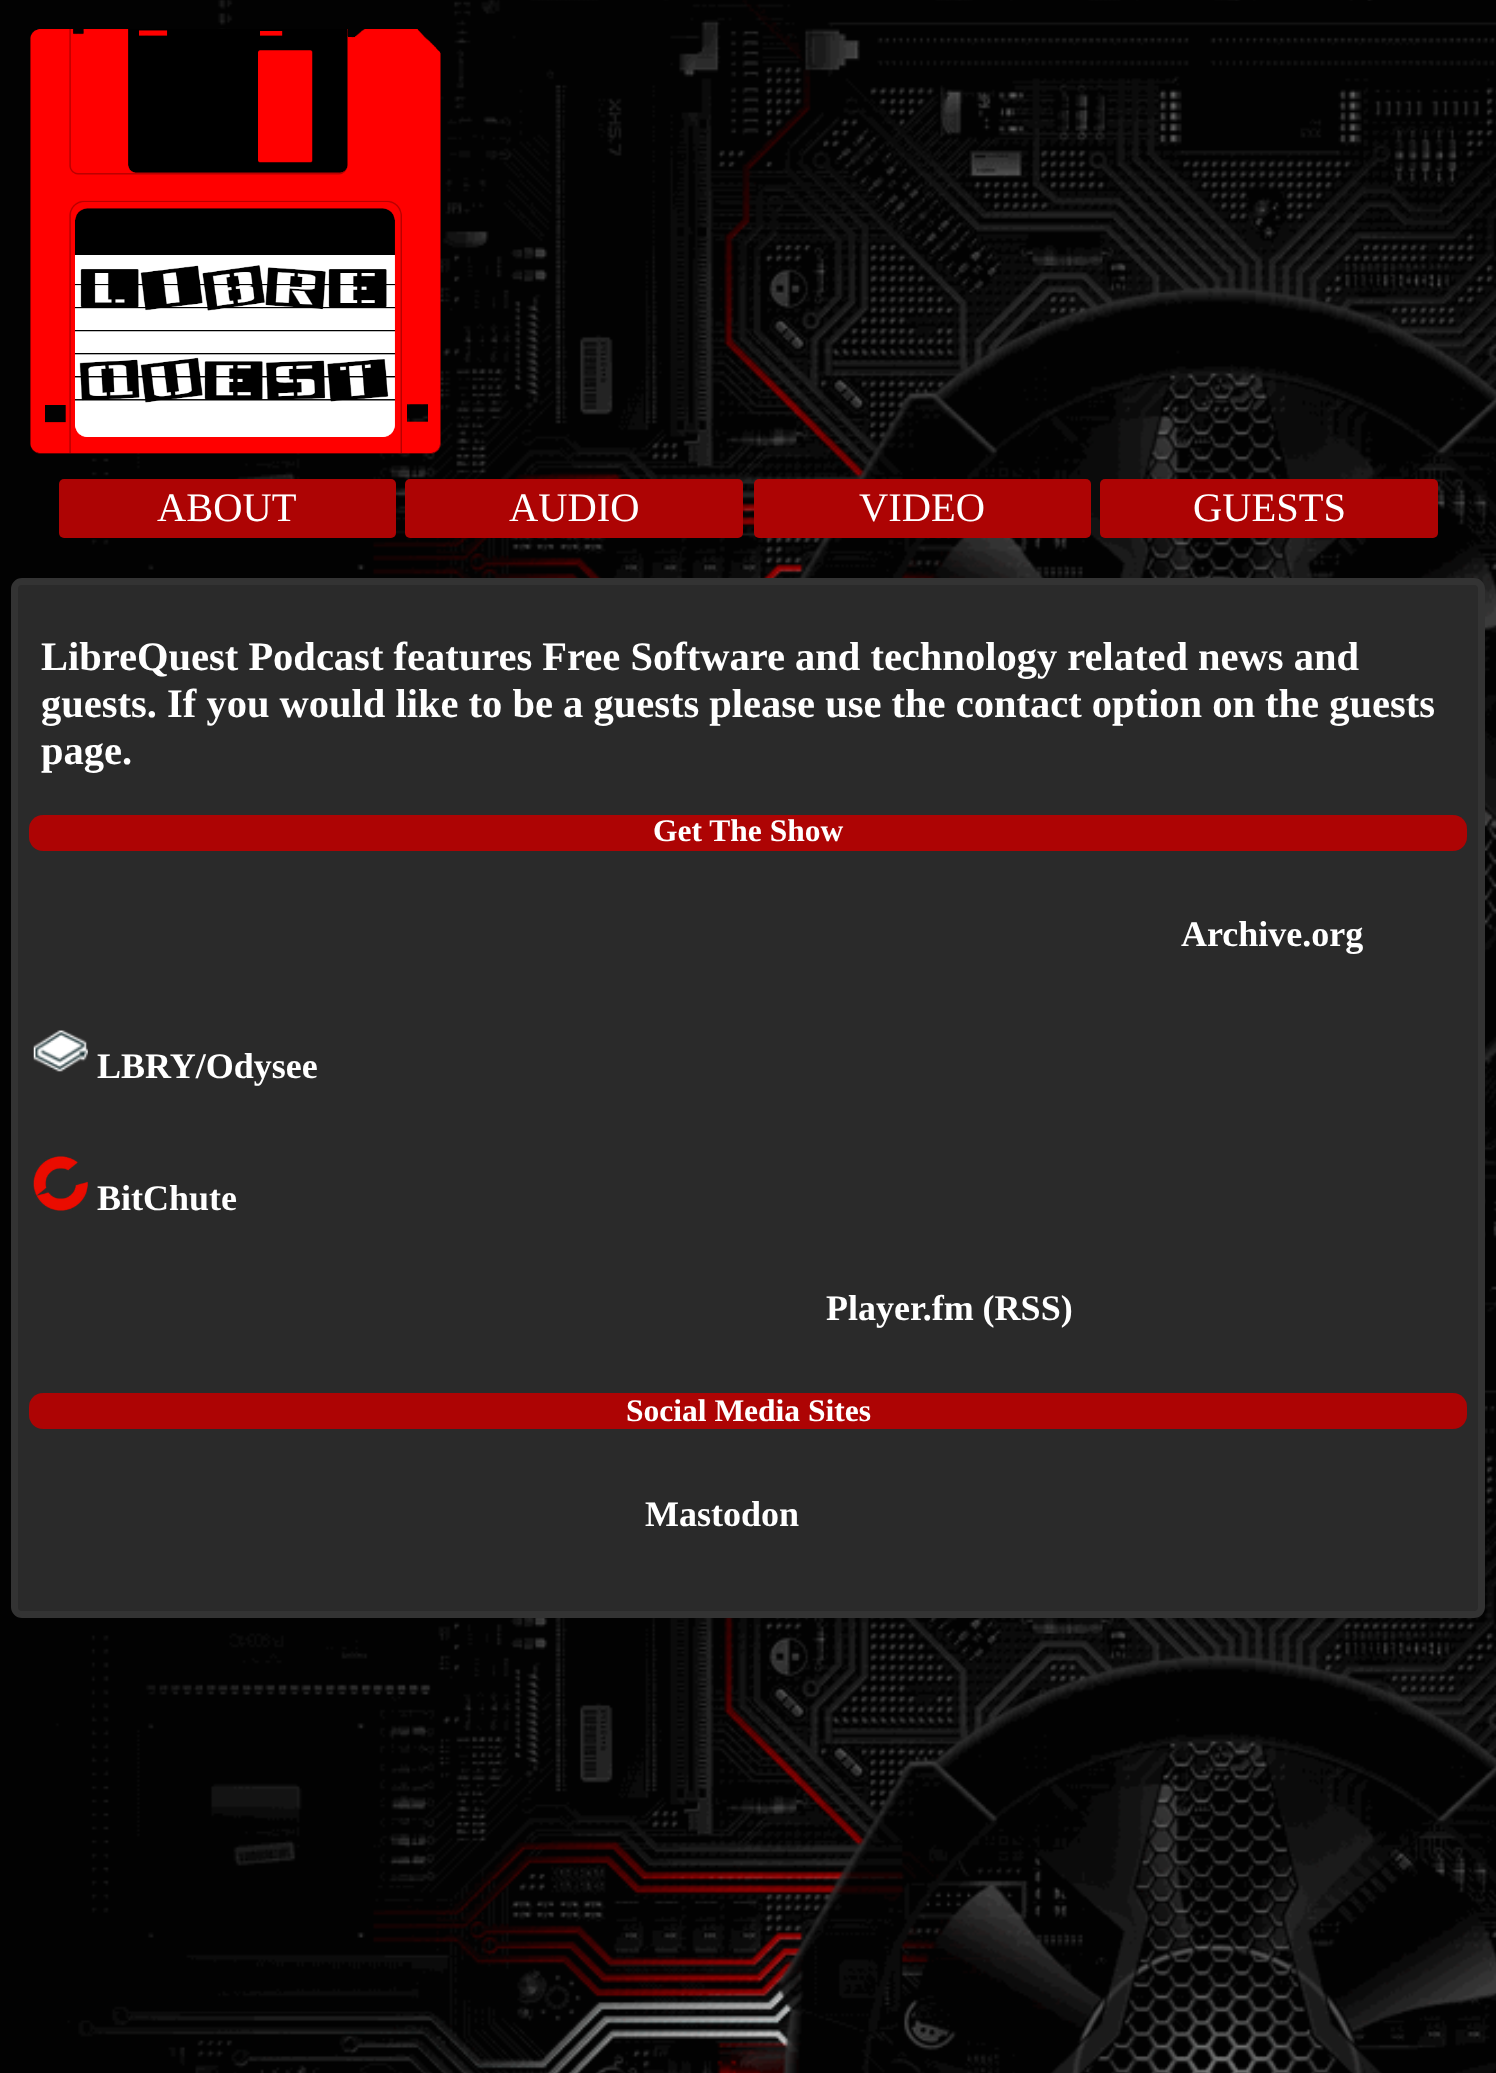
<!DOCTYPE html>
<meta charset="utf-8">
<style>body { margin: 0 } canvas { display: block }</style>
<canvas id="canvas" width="1496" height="2073"></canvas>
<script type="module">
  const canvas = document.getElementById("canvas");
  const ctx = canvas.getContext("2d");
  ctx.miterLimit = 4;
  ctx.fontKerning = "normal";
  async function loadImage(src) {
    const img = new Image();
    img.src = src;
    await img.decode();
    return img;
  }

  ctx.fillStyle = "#ffffff";
  ctx.fillRect(0, 0, 1496, 2073);
  ctx.drawImage(await loadImage("img1.png"), 0, 0, 1496, 2073);
  ctx.drawImage(await loadImage("img2.png"), 30, 29, 411, 425);
  ctx.fillStyle = "#ad0404";
  ctx.beginPath();
  ctx.roundRect(59, 479, 337, 59, 5);
  ctx.fill();
  ctx.font = "40.5px Liberation Serif";
  ctx.fillStyle = "#ffffff";
  ctx.fillText("ABOUT", 157, 521);
  ctx.fillStyle = "#ad0404";
  ctx.beginPath();
  ctx.roundRect(405, 479, 338, 59, 5);
  ctx.fill();
  ctx.fillStyle = "#ffffff";
  ctx.fillText("AUDIO", 509, 521);
  ctx.fillStyle = "#ad0404";
  ctx.beginPath();
  ctx.roundRect(754, 479, 337, 59, 5);
  ctx.fill();
  ctx.fillStyle = "#ffffff";
  ctx.fillText("VIDEO", 859, 521);
  ctx.fillStyle = "#ad0404";
  ctx.beginPath();
  ctx.roundRect(1100, 479, 338, 59, 5);
  ctx.fill();
  ctx.fillStyle = "#ffffff";
  ctx.fillText("GUESTS", 1193, 521);
  ctx.fillStyle = "#2a2a2a";
  ctx.beginPath();
  ctx.roundRect(14.5, 581.5, 1467, 1033, 7.5);
  ctx.fill();
  ctx.strokeStyle = "#333333";
  ctx.lineWidth = 7;
  ctx.stroke();
  ctx.font = "bold 40.5px Liberation Serif";
  ctx.fillStyle = "#ffffff";
  ctx.fillText("LibreQuest Podcast features Free Software and technology related news and", 41, 670);
  ctx.fillText("guests. If you would like to be a guests please use the contact option on the guests", 41, 717);
  ctx.fillText("page.", 41, 764);
  ctx.fillStyle = "#ad0404";
  ctx.beginPath();
  ctx.roundRect(29, 815, 1438, 36, 14);
  ctx.fill();
  ctx.font = "bold 31.5px Liberation Serif";
  ctx.fillStyle = "#ffffff";
  ctx.fillText("Get The Show", 653, 841);
  ctx.font = "bold 36px Liberation Serif";
  ctx.fillText("Archive.org", 1181, 946);
  ctx.drawImage(await loadImage("img3.png"), 33, 1030, 55, 42);
  ctx.fillText("LBRY/Odysee", 97, 1078);
  ctx.drawImage(await loadImage("img4.png"), 33, 1156, 55, 55);
  ctx.fillText("BitChute", 97, 1210);
  ctx.fillText("Player.fm (RSS)", 826, 1320);
  ctx.fillStyle = "#ad0404";
  ctx.beginPath();
  ctx.roundRect(29, 1393, 1438, 36, 14);
  ctx.fill();
  ctx.font = "bold 31.5px Liberation Serif";
  ctx.fillStyle = "#ffffff";
  ctx.fillText("Social Media Sites", 626, 1421);
  ctx.font = "bold 36px Liberation Serif";
  ctx.fillText("Mastodon", 645, 1526);
</script>
